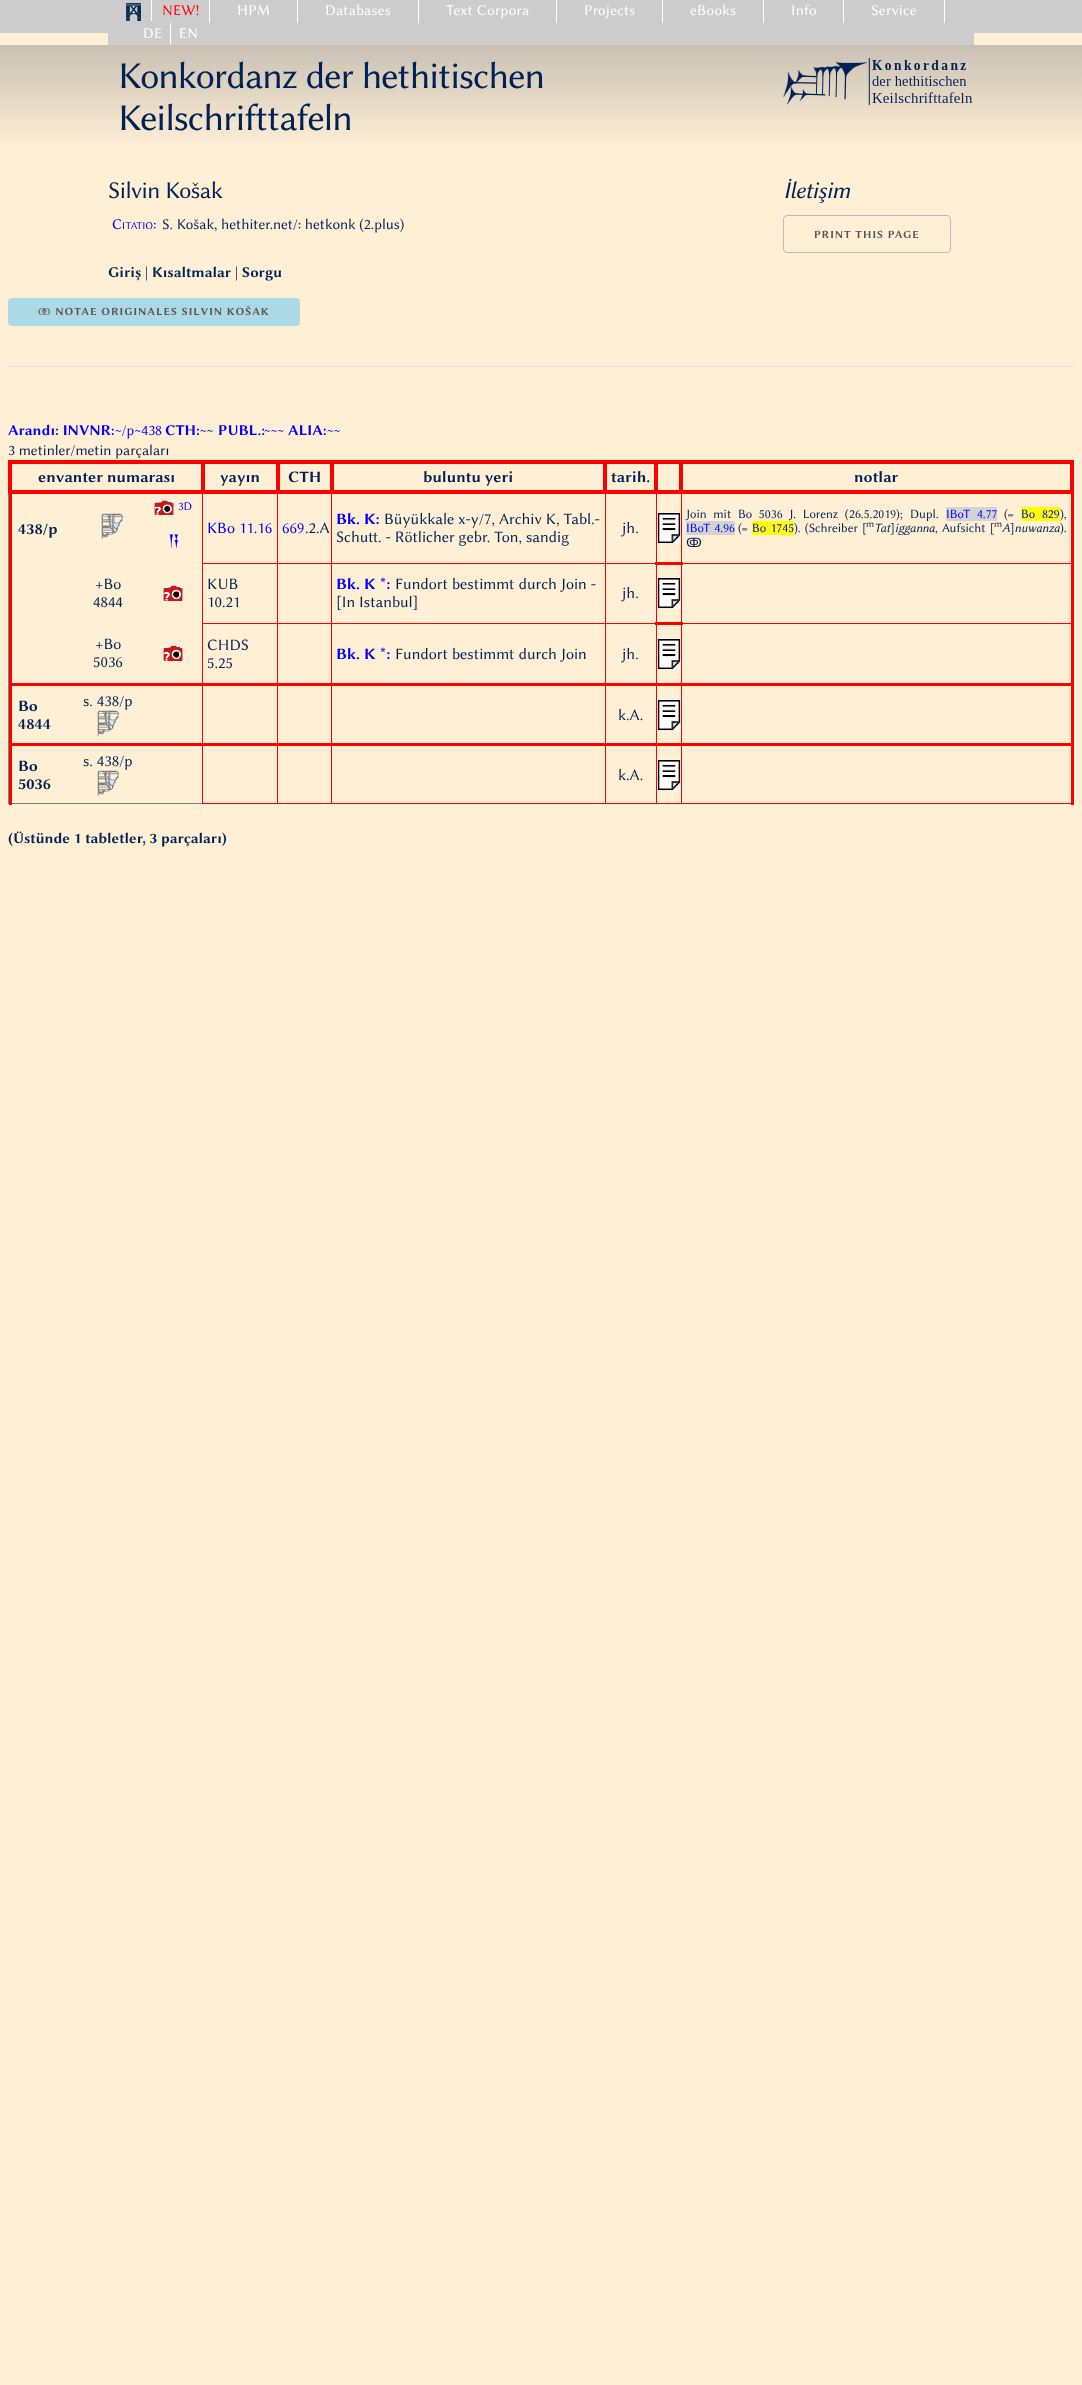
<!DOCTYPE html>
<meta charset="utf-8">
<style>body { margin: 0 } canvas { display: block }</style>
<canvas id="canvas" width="1082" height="2385"></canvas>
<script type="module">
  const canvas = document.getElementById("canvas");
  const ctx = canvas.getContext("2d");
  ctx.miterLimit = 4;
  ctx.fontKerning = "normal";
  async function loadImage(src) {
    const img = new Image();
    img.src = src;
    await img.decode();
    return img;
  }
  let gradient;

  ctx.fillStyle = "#ffefd5";
  ctx.fillRect(0, 0, 1082, 2385);
  ctx.fillStyle = "#cccccc";
  ctx.fillRect(0, 0, 1082, 33);
  ctx.fillRect(108, 33, 866, 12);
  ctx.fillStyle = "#ffffff";
  ctx.fillRect(151, 0, 1, 21);
  ctx.drawImage(await loadImage("img1.png"), 126, 3, 15, 18);
  ctx.fillRect(209, 0, 1, 23);
  ctx.letterSpacing = "0.25px";
  ctx.font = "15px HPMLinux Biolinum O";
  ctx.fillStyle = "#ff0000";
  ctx.fillText("NEW!", 162, 15);
  ctx.fillStyle = "#ffffff";
  ctx.fillRect(297, 0, 1, 23);
  ctx.fillText("HPM", 237, 15);
  ctx.fillRect(418, 0, 1, 23);
  ctx.fillText("Databases", 325, 15);
  ctx.fillRect(556, 0, 1, 23);
  ctx.fillText("Text Corpora", 446, 15);
  ctx.fillRect(662, 0, 1, 23);
  ctx.fillText("Projects", 584, 15);
  ctx.fillRect(763, 0, 1, 23);
  ctx.fillText("eBooks", 690, 15);
  ctx.fillRect(843, 0, 1, 23);
  ctx.fillText("Info", 791, 15);
  ctx.fillRect(944, 0, 1, 23);
  ctx.fillText("Service", 871, 15);
  ctx.fillRect(170, 23, 1, 22);
  ctx.fillText("DE", 143, 38);
  ctx.fillText("EN", 179, 38);
  gradient = ctx.createLinearGradient(541, -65, 541, 167);
  gradient.addColorStop(0, "#909090");
  gradient.addColorStop(0.92, "#ffefd5");
  ctx.fillStyle = gradient;
  ctx.fillRect(0, 45, 1082, 99);
  ctx.letterSpacing = "-1px";
  ctx.font = "38px HPMLinux Biolinum O";
  ctx.fillStyle = "#002255";
  ctx.fillText("Konkordanz der hethitischen", 118, 88);
  ctx.fillText("Keilschrifttafeln", 118, 130);
  ctx.drawImage(await loadImage("img2.png"), 783, 58, 190, 48);
  ctx.letterSpacing = "-0.5px";
  ctx.font = "24px HPMLinux Biolinum O";
  ctx.fillText("Silvin Košak", 108, 198);
  ctx.font = "italic 24px HPMLinux Biolinum O";
  ctx.fillText("İletişim", 783, 198);
  ctx.letterSpacing = "0px";
  ctx.font = "15px HPMLinux Biolinum O";
  ctx.fillStyle = "#0000ff";
  ctx.fillText("C", 112, 229);
  ctx.font = "10.5px HPMLinux Biolinum O";
  ctx.fillText("ITATIO", 122, 229);
  ctx.font = "15px HPMLinux Biolinum O";
  ctx.fillText(":", 153, 229);
  ctx.fillStyle = "#002255";
  ctx.fillText("S. Košak, hethiter.net/: hetkonk (2.plus)", 162, 229);
  ctx.beginPath();
  ctx.roundRect(783.5, 215.5, 167, 37, 3.5);
  ctx.strokeStyle = "#bbbbbb";
  ctx.stroke();
  ctx.letterSpacing = "1px";
  ctx.font = "bold 11px HPMLinux Biolinum O";
  ctx.fillStyle = "#555555";
  ctx.fillText("PRINT THIS PAGE", 814, 238);
  ctx.letterSpacing = "0px";
  ctx.font = "bold 15px HPMLinux Biolinum O";
  ctx.fillStyle = "#002255";
  ctx.fillText("Giriş", 108, 277);
  ctx.font = "15px HPMLinux Biolinum O";
  ctx.fillText("|", 145, 277);
  ctx.font = "bold 15px HPMLinux Biolinum O";
  ctx.fillText("Kısaltmalar", 152, 277);
  ctx.font = "15px HPMLinux Biolinum O";
  ctx.fillText("|", 235, 277);
  ctx.font = "bold 15px HPMLinux Biolinum O";
  ctx.fillText("Sorgu", 242, 277);
  ctx.fillStyle = "#add8e6";
  ctx.beginPath();
  ctx.roundRect(8, 298, 292, 28, 4);
  ctx.fill();
  ctx.letterSpacing = "1px";
  ctx.font = "bold 11px HPMLinux Biolinum O";
  ctx.fillStyle = "#555555";
  ctx.fillText("ↂ NOTAE ORIGINALES SILVIN KOŠAK", 38, 315);
  ctx.fillStyle = "#e1e1e1";
  ctx.fillRect(8, 366, 1066, 1);
  ctx.letterSpacing = "0px";
  ctx.font = "bold 15px HPMLinux Biolinum O";
  ctx.fillStyle = "#0000ff";
  ctx.fillText("Arandı: INVNR:", 8, 435);
  ctx.font = "15px HPMLinux Biolinum O";
  ctx.fillText("~/p~438", 115, 435);
  ctx.font = "bold 15px HPMLinux Biolinum O";
  ctx.fillText("CTH:", 165, 435);
  ctx.font = "15px HPMLinux Biolinum O";
  ctx.fillText("~~", 200, 435);
  ctx.font = "bold 15px HPMLinux Biolinum O";
  ctx.fillText("PUBL.:", 218, 435);
  ctx.font = "15px HPMLinux Biolinum O";
  ctx.fillText("~~~", 264, 435);
  ctx.font = "bold 15px HPMLinux Biolinum O";
  ctx.fillText("ALIA:", 288, 435);
  ctx.font = "15px HPMLinux Biolinum O";
  ctx.fillText("~~", 327, 435);
  ctx.fillStyle = "#002255";
  ctx.fillText("3 metinler/metin parçaları", 8, 455);
  ctx.fillStyle = "#808080";
  ctx.fillRect(8, 803, 194, 1);
  ctx.fillRect(8, 494, 1, 310);
  ctx.fillStyle = "#ff0000";
  ctx.fillRect(679, 460, 395, 4);
  ctx.fillRect(681, 803, 392, 1);
  ctx.fillRect(681, 623, 1, 181);
  ctx.fillRect(681, 623, 392, 1);
  ctx.fillRect(681, 563, 1, 61);
  ctx.fillRect(681, 563, 392, 1);
  ctx.fillRect(656, 803, 26, 1);
  ctx.fillRect(656, 491, 1, 313);
  ctx.fillRect(605, 803, 52, 1);
  ctx.fillRect(605, 623, 1, 181);
  ctx.fillRect(331, 803, 275, 1);
  ctx.fillRect(331, 623, 1, 181);
  ctx.fillRect(277, 803, 55, 1);
  ctx.fillRect(277, 623, 1, 181);
  ctx.fillRect(202, 803, 76, 1);
  ctx.fillRect(202, 623, 1, 181);
  ctx.fillRect(9, 683, 1065, 3);
  ctx.fillRect(9, 743, 1065, 3);
  ctx.fillRect(1071, 743, 3, 62);
  ctx.fillRect(1071, 490, 3, 256);
  ctx.fillRect(1070, 460, 4, 34);
  ctx.fillRect(681, 491, 1, 73);
  ctx.fillRect(679, 490, 395, 4);
  ctx.fillRect(679, 460, 4, 34);
  ctx.fillRect(654, 460, 29, 4);
  ctx.fillRect(654, 490, 29, 4);
  ctx.fillRect(654, 460, 4, 34);
  ctx.fillRect(603, 460, 55, 4);
  ctx.fillRect(605, 623, 52, 1);
  ctx.fillRect(605, 563, 1, 61);
  ctx.fillRect(605, 563, 52, 1);
  ctx.fillRect(605, 491, 1, 73);
  ctx.fillRect(603, 490, 55, 4);
  ctx.fillRect(603, 460, 4, 34);
  ctx.fillRect(330, 460, 277, 4);
  ctx.fillRect(331, 623, 275, 1);
  ctx.fillRect(331, 563, 1, 61);
  ctx.fillRect(331, 563, 275, 1);
  ctx.fillRect(331, 491, 1, 73);
  ctx.fillRect(330, 490, 277, 4);
  ctx.fillRect(330, 460, 4, 34);
  ctx.fillRect(276, 460, 58, 4);
  ctx.fillRect(277, 623, 55, 1);
  ctx.fillRect(277, 563, 1, 61);
  ctx.fillRect(277, 563, 55, 1);
  ctx.fillRect(277, 491, 1, 73);
  ctx.fillRect(276, 490, 58, 4);
  ctx.fillRect(276, 460, 4, 34);
  ctx.fillRect(201, 460, 79, 4);
  ctx.fillRect(202, 623, 76, 1);
  ctx.fillRect(202, 563, 1, 61);
  ctx.fillRect(202, 563, 76, 1);
  ctx.fillRect(202, 491, 1, 73);
  ctx.fillRect(201, 490, 79, 4);
  ctx.fillRect(201, 460, 4, 34);
  ctx.fillRect(8, 460, 197, 4);
  ctx.fillRect(9, 743, 3, 62);
  ctx.fillRect(9, 490, 3, 256);
  ctx.fillRect(8, 490, 197, 4);
  ctx.fillRect(8, 460, 4, 34);
  ctx.font = "bold 16px HPMLinux Biolinum O";
  ctx.fillStyle = "#002255";
  ctx.fillText("envanter numarası", 38, 482);
  ctx.fillText("yayın", 220, 482);
  ctx.fillText("CTH", 288, 482);
  ctx.fillText("buluntu yeri", 423, 482);
  ctx.fillText("tarih.", 611, 482);
  ctx.fillText("notlar", 854, 482);
  ctx.fillText("438/p", 18, 534);
  ctx.drawImage(await loadImage("img3.png"), 101, 513, 22, 27);
  ctx.drawImage(await loadImage("img4.png"), 154, 500, 20, 16);
  ctx.font = "12px HPMLinux Biolinum O";
  ctx.fillStyle = "#0000ff";
  ctx.fillText("3D", 178, 510);
  ctx.font = "16px Noto Sans Cuneiform";
  ctx.fillText("𒀀", 168, 546);
  ctx.font = "16px HPMLinux Biolinum O";
  ctx.fillText("KBo 11.16", 207, 533);
  ctx.fillText("669", 282, 533);
  ctx.fillStyle = "#002255";
  ctx.fillText(".2.A", 305, 533);
  ctx.font = "bold 16px HPMLinux Biolinum O";
  ctx.fillStyle = "#0000ff";
  ctx.fillText("Bk. K:", 336, 524);
  ctx.font = "16px HPMLinux Biolinum O";
  ctx.fillStyle = "#002255";
  ctx.fillText("Büyükkale x-y/7, Archiv K, Tabl.-", 384, 524);
  ctx.fillText("Schutt. - Rötlicher gebr. Ton, sandig", 336, 542);
  ctx.fillText("jh.", 622, 533);
  ctx.drawImage(await loadImage("img5.png"), 657, 512, 24, 32);
  ctx.wordSpacing = "3.5px";
  ctx.font = "12.75px HPMLinux Biolinum O";
  ctx.fillText("Join mit Bo 5036 J. Lorenz (", 686, 518);
  ctx.wordSpacing = "0px";
  ctx.fillText("26.5.2019);", 849, 518);
  ctx.fillText("Dupl.", 910, 518);
  ctx.fillStyle = "#d3d3d3";
  ctx.fillRect(946, 507, 51, 14);
  ctx.wordSpacing = "3.5px";
  ctx.fillStyle = "#0000ff";
  ctx.fillText("IBoT 4.77", 946, 518);
  ctx.wordSpacing = "0px";
  ctx.fillStyle = "#002255";
  ctx.fillText("(=", 1004, 518);
  ctx.fillStyle = "#ffff00";
  ctx.fillRect(1021, 507, 39, 14);
  ctx.wordSpacing = "3.5px";
  ctx.fillStyle = "#0000ff";
  ctx.fillText("Bo 829", 1021, 518);
  ctx.wordSpacing = "0px";
  ctx.fillStyle = "#002255";
  ctx.fillText("),", 1060, 518);
  ctx.fillStyle = "#d3d3d3";
  ctx.fillRect(686, 521, 49, 14);
  ctx.wordSpacing = "1px";
  ctx.fillStyle = "#0000ff";
  ctx.fillText("IBoT 4.96", 686, 532);
  ctx.wordSpacing = "0px";
  ctx.fillStyle = "#002255";
  ctx.fillText("(=", 738, 532);
  ctx.fillStyle = "#ffff00";
  ctx.fillRect(752, 521, 42, 14);
  ctx.wordSpacing = "1px";
  ctx.fillStyle = "#0000ff";
  ctx.fillText("Bo 1745", 752, 532);
  ctx.fillStyle = "#002255";
  ctx.fillText("). (Schreiber [", 794, 532);
  ctx.wordSpacing = "0px";
  ctx.font = "10px HPMLinux Biolinum O";
  ctx.fillText("m", 866, 527);
  ctx.font = "italic 12.75px HPMLinux Biolinum O";
  ctx.fillText("Tat]igganna", 874, 532);
  ctx.wordSpacing = "1px";
  ctx.font = "12.75px HPMLinux Biolinum O";
  ctx.fillText(", Aufsicht [", 935, 532);
  ctx.wordSpacing = "0px";
  ctx.font = "10px HPMLinux Biolinum O";
  ctx.fillText("m", 994, 527);
  ctx.font = "italic 12.75px HPMLinux Biolinum O";
  ctx.fillText("A]nuwanza", 1002, 532);
  ctx.font = "12.75px HPMLinux Biolinum O";
  ctx.fillText(").", 1060, 532);
  ctx.font = "12.75px DejaVu Sans";
  ctx.fillText("ↂ", 686, 547);
  ctx.font = "16px HPMLinux Biolinum O";
  ctx.fillText("+Bo", 95, 589);
  ctx.fillText("4844", 93, 607);
  ctx.drawImage(await loadImage("img6.png"), 163, 585, 20, 17);
  ctx.fillText("KUB", 207, 589);
  ctx.fillText("10.21", 207, 607);
  ctx.font = "bold 16px HPMLinux Biolinum O";
  ctx.fillStyle = "#0000ff";
  ctx.fillText("Bk. K *:", 336, 589);
  ctx.font = "16px HPMLinux Biolinum O";
  ctx.fillStyle = "#002255";
  ctx.fillText("Fundort bestimmt durch Join -", 395, 589);
  ctx.fillText("[In Istanbul]", 336, 607);
  ctx.fillText("jh.", 622, 598);
  ctx.fillStyle = "#ff0000";
  ctx.fillRect(655, 562, 28, 3);
  ctx.drawImage(await loadImage("img5.png"), 657, 577, 24, 32);
  ctx.fillStyle = "#002255";
  ctx.fillText("+Bo", 95, 649);
  ctx.fillText("5036", 93, 667);
  ctx.drawImage(await loadImage("img6.png"), 163, 645, 20, 17);
  ctx.fillText("CHDS", 207, 650);
  ctx.fillText("5.25", 207, 668);
  ctx.font = "bold 16px HPMLinux Biolinum O";
  ctx.fillStyle = "#0000ff";
  ctx.fillText("Bk. K *:", 336, 659);
  ctx.font = "16px HPMLinux Biolinum O";
  ctx.fillStyle = "#002255";
  ctx.fillText("Fundort bestimmt durch Join", 395, 659);
  ctx.fillText("jh.", 622, 659);
  ctx.fillStyle = "#ff0000";
  ctx.fillRect(655, 622, 28, 3);
  ctx.drawImage(await loadImage("img5.png"), 657, 638, 24, 32);
  ctx.font = "bold 16px HPMLinux Biolinum O";
  ctx.fillStyle = "#002255";
  ctx.fillText("Bo", 18, 711);
  ctx.fillText("4844", 18, 729);
  ctx.font = "16px HPMLinux Biolinum O";
  ctx.fillText("s. 438/p", 83, 706);
  ctx.drawImage(await loadImage("img3.png"), 97, 710, 22, 27);
  ctx.fillText("k.A.", 618, 720);
  ctx.drawImage(await loadImage("img5.png"), 657, 699, 24, 32);
  ctx.drawImage(await loadImage("img5.png"), 657, 759, 24, 32);
  ctx.font = "bold 16px HPMLinux Biolinum O";
  ctx.fillText("Bo", 18, 771);
  ctx.fillText("5036", 18, 789);
  ctx.font = "16px HPMLinux Biolinum O";
  ctx.fillText("s. 438/p", 83, 766);
  ctx.drawImage(await loadImage("img3.png"), 97, 770, 22, 27);
  ctx.fillText("k.A.", 618, 780);
  ctx.font = "bold 15px HPMLinux Biolinum O";
  ctx.fillText("(Üstünde 1 tabletler, 3 parçaları)", 8, 843);
</script>
